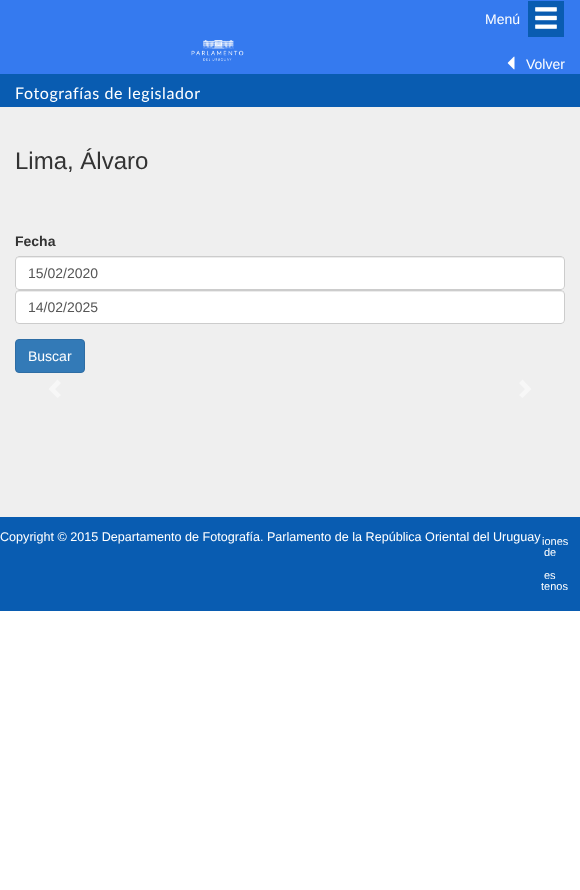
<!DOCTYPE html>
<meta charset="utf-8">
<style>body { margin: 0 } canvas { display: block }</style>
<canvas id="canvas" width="580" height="890"></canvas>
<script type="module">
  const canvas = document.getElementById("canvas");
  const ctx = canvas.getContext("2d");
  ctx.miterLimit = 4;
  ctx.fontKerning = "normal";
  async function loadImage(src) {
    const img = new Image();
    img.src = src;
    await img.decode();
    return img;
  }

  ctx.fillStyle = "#ffffff";
  ctx.fillRect(0, 0, 580, 890);
  ctx.fillStyle = "#357aef";
  ctx.fillRect(0, 0, 580, 74);
  ctx.font = "14px Liberation Sans";
  ctx.fillStyle = "#ffffff";
  ctx.fillText("Menú", 485, 24);
  ctx.fillStyle = "#095cb1";
  ctx.fillRect(528, 1, 36, 36);
  ctx.drawImage(await loadImage("img1.png"), 535, 7, 22, 22);
  ctx.fillStyle = "#efefef";
  ctx.fillRect(0, 107, 580, 410);
  ctx.drawImage(await loadImage("img2.png"), 191, 40, 53, 21);
  ctx.drawImage(await loadImage("img3.png"), 507, 56, 8, 14);
  ctx.fillStyle = "#ffffff";
  ctx.fillText("Volver", 526, 69);
  ctx.fillStyle = "#095cb1";
  ctx.fillRect(0, 74, 580, 33);
  ctx.letterSpacing = "0.6px";
  ctx.font = "16px Lato";
  ctx.fillStyle = "#ffffff";
  ctx.fillText("Fotografías de legislador", 15, 99);
  ctx.letterSpacing = "0px";
  ctx.font = "24px Liberation Sans";
  ctx.fillStyle = "#333333";
  ctx.fillText("Lima, Álvaro", 15, 169);
  ctx.font = "bold 14px Liberation Sans";
  ctx.fillText("Fecha", 15, 246);
  ctx.fillStyle = "#ffffff";
  ctx.beginPath();
  ctx.roundRect(15, 256, 550, 34, 4);
  ctx.fill();
  ctx.fillStyle = "#ececec";
  ctx.beginPath();
  ctx.moveTo(19, 258);
  ctx.lineTo(561, 258);
  ctx.bezierCurveTo(563, 258, 564, 259, 564, 261);
  ctx.lineTo(564, 260);
  ctx.bezierCurveTo(564, 258, 563, 257, 561, 257);
  ctx.lineTo(19, 257);
  ctx.bezierCurveTo(17, 257, 16, 258, 16, 260);
  ctx.lineTo(16, 261);
  ctx.bezierCurveTo(16, 259, 17, 258, 19, 258);
  ctx.closePath();
  ctx.fill();
  ctx.beginPath();
  ctx.roundRect(15.5, 256.5, 549, 33, 3.5);
  ctx.strokeStyle = "#cccccc";
  ctx.stroke();
  ctx.font = "14px Liberation Sans";
  ctx.fillStyle = "#555555";
  ctx.fillText("15/02/2020", 28, 278);
  ctx.fillStyle = "#ffffff";
  ctx.beginPath();
  ctx.roundRect(15, 290, 550, 34, 4);
  ctx.fill();
  ctx.fillStyle = "#ececec";
  ctx.beginPath();
  ctx.moveTo(19, 292);
  ctx.lineTo(561, 292);
  ctx.bezierCurveTo(563, 292, 564, 293, 564, 295);
  ctx.lineTo(564, 294);
  ctx.bezierCurveTo(564, 292, 563, 291, 561, 291);
  ctx.lineTo(19, 291);
  ctx.bezierCurveTo(17, 291, 16, 292, 16, 294);
  ctx.lineTo(16, 295);
  ctx.bezierCurveTo(16, 293, 17, 292, 19, 292);
  ctx.closePath();
  ctx.fill();
  ctx.beginPath();
  ctx.roundRect(15.5, 290.5, 549, 33, 3.5);
  ctx.stroke();
  ctx.fillStyle = "#555555";
  ctx.fillText("14/02/2025", 28, 312);
  ctx.fillStyle = "#337ab7";
  ctx.beginPath();
  ctx.roundRect(15.5, 339.5, 69, 33, 3.5);
  ctx.fill();
  ctx.strokeStyle = "#2e6da4";
  ctx.stroke();
  ctx.fillStyle = "#ffffff";
  ctx.fillText("Buscar", 28, 361);
  ctx.fillStyle = "#f7f7f7";
  ctx.beginPath();
  ctx.moveTo(61, 383);
  ctx.lineTo(55, 389);
  ctx.lineTo(61, 395);
  ctx.lineTo(57.5, 398);
  ctx.lineTo(48.5, 389);
  ctx.lineTo(57.5, 379.5);
  ctx.closePath();
  ctx.fill();
  ctx.beginPath();
  ctx.moveTo(531.5, 389);
  ctx.lineTo(522.5, 398);
  ctx.lineTo(519, 395);
  ctx.lineTo(525, 389);
  ctx.lineTo(519, 383);
  ctx.lineTo(522.5, 379.5);
  ctx.closePath();
  ctx.fill();
  ctx.fillStyle = "#095cb1";
  ctx.fillRect(0, 517, 580, 94);
  ctx.font = "12.6px Liberation Sans";
  ctx.fillStyle = "#ffffff";
  ctx.fillText("Copyright © 2015 Departamento de Fotografía. Parlamento de la República Oriental del Uruguay", 0, 541);
  ctx.font = "11px Liberation Sans";
  ctx.fillText("iones", 542, 545);
  ctx.fillText("de", 544, 556);
  ctx.fillText("es", 544, 579);
  ctx.fillText("tenos", 541, 590);
</script>
